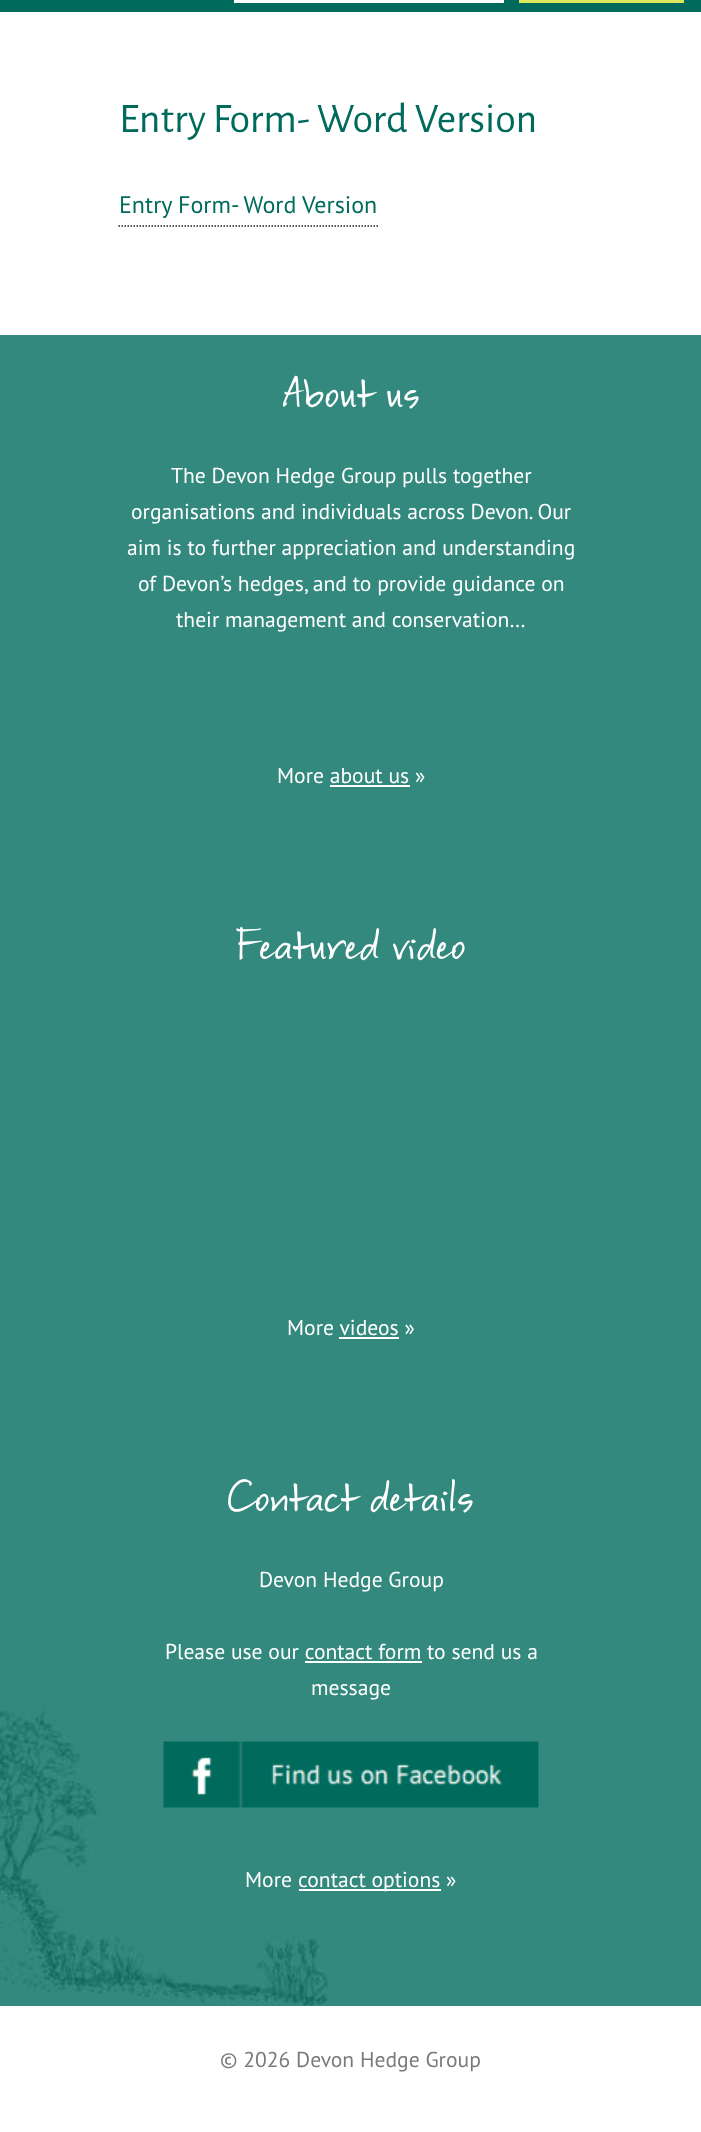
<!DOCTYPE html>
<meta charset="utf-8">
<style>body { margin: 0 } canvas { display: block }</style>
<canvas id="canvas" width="701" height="2132"></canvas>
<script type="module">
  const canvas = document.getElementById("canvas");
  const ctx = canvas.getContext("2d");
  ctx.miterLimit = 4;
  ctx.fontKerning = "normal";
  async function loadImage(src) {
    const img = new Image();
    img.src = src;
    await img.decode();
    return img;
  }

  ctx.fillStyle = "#ffffff";
  ctx.fillRect(0, 0, 701, 2132);
  ctx.fillStyle = "#006b5c";
  ctx.fillRect(0, 0, 701, 12);
  ctx.fillStyle = "#ffffff";
  ctx.fillRect(234, 0, 270, 3);
  ctx.fillStyle = "#dee85c";
  ctx.fillRect(519, 0, 165, 3);
  ctx.font = "42px Alegreya Sans";
  ctx.fillStyle = "#006b5c";
  ctx.fillText("Entry Form- Word Version", 119, 132);
  ctx.beginPath();
  ctx.moveTo(118.5, 226);
  ctx.lineTo(378, 226);
  ctx.strokeStyle = "#212121";
  ctx.lineWidth = 1.5;
  ctx.setLineDash([1.5, 1.5]);
  ctx.stroke();
  ctx.font = "24px PT Sans";
  ctx.fillText("Entry Form- Word Version", 119, 213);
  ctx.fillStyle = "#33897d";
  ctx.fillRect(0, 335, 701, 1671);
  ctx.drawImage(await loadImage("img1.png"), 0, 1705, 329, 301);
  ctx.font = "43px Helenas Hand";
  ctx.fillStyle = "#ffffff";
  ctx.fillText("About", 283, 407);
  ctx.fillText("us", 386, 407);
  ctx.font = "21.6px PT Sans";
  ctx.fillText("The Devon Hedge Group pulls together", 171, 483);
  ctx.fillText("organisations and individuals across Devon. Our", 131, 519);
  ctx.fillText("aim is to further appreciation and understanding", 127, 555);
  ctx.fillText("of Devon’s hedges, and to provide guidance on", 138, 591);
  ctx.fillText("their management and conservation…", 176, 627);
  ctx.fillText("More about us »", 277, 783);
  ctx.fillRect(330, 785, 80, 2);
  ctx.font = "43px Helenas Hand";
  ctx.fillText("Featured", 236, 959);
  ctx.fillText("video", 392, 959);
  ctx.font = "21.6px PT Sans";
  ctx.fillText("More videos »", 287, 1335);
  ctx.fillRect(339, 1337, 60, 2);
  ctx.font = "43px Helenas Hand";
  ctx.fillText("Contact", 228, 1511);
  ctx.fillText("details", 370, 1511);
  ctx.font = "21.6px PT Sans";
  ctx.fillText("Devon Hedge Group", 259, 1587);
  ctx.fillText("Please use our contact form to send us a", 165, 1659);
  ctx.fillRect(305, 1661, 117, 2);
  ctx.fillText("message", 311, 1695);
  ctx.drawImage(await loadImage("img2.png"), 163, 1741, 376, 67);
  ctx.fillText("More", 245, 1887);
  ctx.fillRect(299, 1889, 142, 2);
  ctx.fillText("contact options »", 298, 1887);
  ctx.fillStyle = "#7a7a7a";
  ctx.fillText("© 2026 Devon Hedge Group", 220, 2067);
</script>
